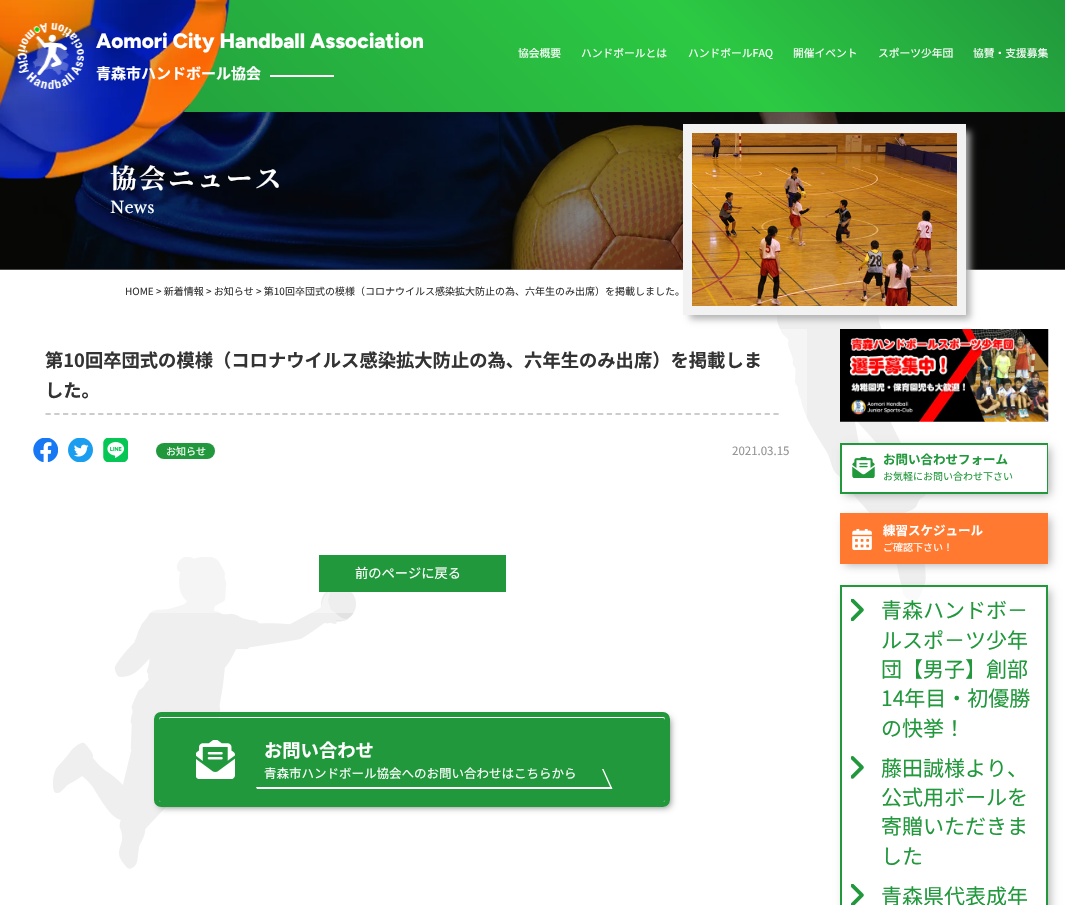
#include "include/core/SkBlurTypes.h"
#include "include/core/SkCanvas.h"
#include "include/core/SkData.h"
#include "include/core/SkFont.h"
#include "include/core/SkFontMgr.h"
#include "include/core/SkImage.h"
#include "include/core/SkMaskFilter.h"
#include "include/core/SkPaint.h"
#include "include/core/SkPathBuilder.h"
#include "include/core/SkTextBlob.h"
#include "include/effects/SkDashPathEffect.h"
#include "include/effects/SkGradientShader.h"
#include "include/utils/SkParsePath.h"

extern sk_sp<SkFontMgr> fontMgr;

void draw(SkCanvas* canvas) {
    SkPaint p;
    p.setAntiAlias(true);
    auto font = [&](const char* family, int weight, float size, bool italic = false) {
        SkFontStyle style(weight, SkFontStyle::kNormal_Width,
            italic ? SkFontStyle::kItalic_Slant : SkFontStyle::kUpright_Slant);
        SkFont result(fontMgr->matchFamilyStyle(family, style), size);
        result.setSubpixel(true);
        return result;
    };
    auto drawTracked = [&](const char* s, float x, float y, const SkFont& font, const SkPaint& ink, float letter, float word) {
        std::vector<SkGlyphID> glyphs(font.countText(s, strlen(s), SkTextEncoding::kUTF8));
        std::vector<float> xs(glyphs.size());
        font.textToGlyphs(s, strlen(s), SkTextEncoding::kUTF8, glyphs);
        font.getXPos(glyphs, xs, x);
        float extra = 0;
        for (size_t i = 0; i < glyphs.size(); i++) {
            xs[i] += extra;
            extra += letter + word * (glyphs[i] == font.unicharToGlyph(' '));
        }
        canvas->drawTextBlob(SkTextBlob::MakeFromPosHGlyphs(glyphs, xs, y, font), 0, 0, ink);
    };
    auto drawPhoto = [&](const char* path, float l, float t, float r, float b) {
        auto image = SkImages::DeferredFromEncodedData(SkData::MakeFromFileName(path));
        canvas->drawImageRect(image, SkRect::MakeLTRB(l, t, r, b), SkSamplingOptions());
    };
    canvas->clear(0xFFFFFFFF);
    {
        const SkColor colors[] = {0xFF21983C, 0xFF2CC943, 0xFF21983C};
        const float stops[] = {0, 0.66f, 1};
        const SkPoint ends[] = {{238, 350}, {827, -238}};
        p.setShader(SkGradientShader::MakeLinear(ends, colors, stops, 3, SkTileMode::kClamp));
        p.setAlpha(255);
    }
    canvas->drawRect(SkRect::MakeLTRB(182, 0, 1065, 112), p);
    drawPhoto("media/3.png", 0, 112, 1065, 270);
    p.setShader(nullptr);
    p.setColor(0x73000000);
    canvas->drawRect(SkRect::MakeLTRB(0, 112, 1065, 270), p);
    auto font1 = font("Noto Serif JP", 700, 26.5f);
    p.setColor(0xFFFFFFFF);
    drawTracked("協会ニュース", 110, 188, font1, p, 2.5f, 0);
    drawPhoto("media/1.png", 0, 0, 230, 179);
    drawPhoto("media/2.png", 17, 23, 84, 89);
    auto font2 = font("Figtree", 800, 20.8f);
    canvas->drawString("Aomori City Handball Association", 96, 48, font2, p);
    auto font3 = font("Noto Sans JP", 700, 15);
    canvas->drawString("青森市ハンドボール協会", 96, 79, font3, p);
    canvas->drawRect(SkRect::MakeLTRB(270, 75, 334, 77), p);
    auto font4 = font("Noto Sans JP", 400, 10.75f);
    {
        const struct { const char* s; float x, y; } items[] = {
            {"協会概要", 518, 57},
            {"ハンドボールとは", 581, 57},
            {"ハンドボールFAQ", 688, 57},
            {"開催イベント", 793, 57},
            {"スポーツ少年団", 878, 57},
            {"協賛・支援募集", 973, 57},
        };
        for (auto [s, x, y] : items) {
            canvas->drawString(s, x, y, font4, p);
        }
    }
    auto font5 = font("Libre Baskerville", 400, 16);
    canvas->drawString("News", 110, 213, font5, p);
    drawPhoto("media/5.png", 776, 315, 926, 600);
    drawPhoto("media/16.png", 53, 557, 356, 869);
    p.setColor(0x66FFFFFF);
    canvas->drawRect(SkRect::MakeLTRB(150, 329, 807, 613), p);
    drawPhoto("media/10.png", 840, 329, 1049, 422);
    p.setColor(0xFFB0B0B0);
    p.setMaskFilter(SkMaskFilter::MakeBlur(kNormal_SkBlurStyle, 3.5f));
    canvas->drawRect(SkRect::MakeLTRB(690, 131, 970, 319), p);
    p.setMaskFilter(nullptr);
    drawPhoto("media/4.png", 692, 133, 957, 306);
    p.setStyle(SkPaint::kStroke_Style);
    p.setStrokeWidth(9);
    p.setColor(0xFFF2F2F2);
    canvas->drawRect(SkRect::MakeLTRB(687.5f, 128.5f, 961.5f, 310.5f), p);
    auto font6 = font("Noto Sans JP", 400, 10);
    p.setStyle(SkPaint::kFill_Style);
    p.setColor(0xFF333333);
    canvas->drawString("HOME > 新着情報 > お知らせ > 第10回卒団式の模様（コロナウイルス感染拡大防止の為、六年生のみ出席）を掲載しました。", 125, 295, font6, p);
    p.setStyle(SkPaint::kStroke_Style);
    p.setStrokeWidth(1.8f);
    p.setColor(0xFFCCCCCC);
    p.setPathEffect(SkDashPathEffect::Make({{5.25f, 3.52f}}, 0));
    canvas->drawPath(SkPathBuilder().moveTo(45.5f, 414).lineTo(779, 414).detach(), p);
    p.setPathEffect(nullptr);
    auto font7 = font("Noto Sans JP", 700, 18.3f);
    p.setStyle(SkPaint::kFill_Style);
    p.setColor(0xFF333333);
    canvas->drawString("第10回卒団式の模様（コロナウイルス感染拡大防止の為、六年生のみ出席）を掲載しま", 45, 367, font7, p);
    canvas->drawString("した。", 45, 397, font7, p);
    drawPhoto("media/6.png", 33, 438, 58, 462);
    drawPhoto("media/7.png", 68, 438, 93, 462);
    drawPhoto("media/8.png", 103, 438, 128, 462);
    p.setColor(0xFF21983C);
    canvas->drawRoundRect(SkRect::MakeLTRB(156, 443, 215, 459), 8, 8, p);
    p.setColor(0xFFFFFFFF);
    canvas->drawString("お知らせ", 166, 455, font6, p);
    auto font8 = font("Noto Sans JP", 400, 11.5f);
    p.setColor(0xFF939393);
    canvas->drawString("2021.03.15", 732, 455, font8, p);
    p.setStyle(SkPaint::kStroke_Style);
    p.setStrokeWidth(2);
    p.setColor(0xFF21983C);
    canvas->drawRect(SkRect::MakeLTRB(320, 556, 505, 591), p);
    p.setStyle(SkPaint::kFill_Style);
    canvas->drawRect(SkRect::MakeLTRB(321, 557, 504, 590), p);
    auto font9 = font("Noto Sans JP", 400, 13.25f);
    p.setColor(0xFFFFFFFF);
    canvas->drawString("前のページに戻る", 355, 578, font9, p);
    p.setColor(0xFF21983C);
    canvas->drawRoundRect(SkRect::MakeLTRB(159, 718, 665, 802), 2, 2, p);
    canvas->save();
    canvas->clipPath(SkPathBuilder(SkPathFillType::kEvenOdd).moveTo(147, 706).lineTo(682, 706).lineTo(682, 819).lineTo(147, 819).close().moveTo(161, 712).lineTo(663, 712).cubicTo(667, 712, 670, 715, 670, 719).lineTo(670, 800).cubicTo(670, 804, 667, 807, 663, 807).lineTo(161, 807).cubicTo(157, 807, 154, 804, 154, 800).lineTo(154, 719).cubicTo(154, 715, 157, 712, 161, 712).close().detach(), true);
    p.setColor(0xFF777777);
    p.setMaskFilter(SkMaskFilter::MakeBlur(kNormal_SkBlurStyle, 3.5f));
    canvas->drawRoundRect(SkRect::MakeLTRB(159, 718, 670, 807), 4, 4, p);
    p.setMaskFilter(nullptr);
    canvas->restore();
    p.setStyle(SkPaint::kStroke_Style);
    p.setStrokeWidth(5);
    p.setColor(0xFF21983C);
    canvas->drawRoundRect(SkRect::MakeLTRB(156.5f, 714.5f, 667.5f, 804.5f), 4.5f, 4.5f, p);
    drawPhoto("media/9.png", 196, 740, 235, 779);
    p.setStyle(SkPaint::kFill_Style);
    p.setColor(0xFFFFFFFF);
    canvas->drawString("お問い合わせ", 264, 757, font7, p);
    auto font10 = font("Noto Sans JP", 400, 12.5f);
    canvas->drawString("青森市ハンドボール協会へのお問い合わせはこちらから", 264, 778, font10, p);
    canvas->drawPath(SkPathBuilder().moveTo(602, 769).lineTo(603.5f, 769).lineTo(612.5f, 789).lineTo(611, 789).close().detach(), p);
    canvas->drawPath(SkPathBuilder().moveTo(256, 787).lineTo(612, 787).lineTo(612, 789).lineTo(257, 789).close().detach(), p);
    p.setColor(0xFFB0B0B0);
    p.setMaskFilter(SkMaskFilter::MakeBlur(kNormal_SkBlurStyle, 4.5f));
    canvas->drawRect(SkRect::MakeLTRB(845, 448, 1050, 495), p);
    p.setMaskFilter(nullptr);
    p.setStyle(SkPaint::kStroke_Style);
    p.setStrokeWidth(2);
    p.setColor(0xFF21983C);
    canvas->drawRect(SkRect::MakeLTRB(841, 444, 1047, 493), p);
    p.setStyle(SkPaint::kFill_Style);
    p.setColor(0xFFFFFFFF);
    canvas->drawRect(SkRect::MakeLTRB(842, 445, 1047, 492), p);
    drawPhoto("media/11.png", 852, 457, 875, 478);
    auto font11 = font("Noto Sans JP", 700, 12.5f);
    p.setColor(0xFF21983C);
    canvas->drawString("お問い合わせフォーム", 883, 464, font11, p);
    canvas->drawString("お気軽にお問い合わせ下さい", 883, 480, font6, p);
    p.setColor(0xFFB0B0B0);
    p.setMaskFilter(SkMaskFilter::MakeBlur(kNormal_SkBlurStyle, 4.5f));
    canvas->drawRect(SkRect::MakeLTRB(845, 518, 1050, 565), p);
    p.setMaskFilter(nullptr);
    p.setStyle(SkPaint::kStroke_Style);
    p.setColor(0xFFFF7A30);
    canvas->drawRect(SkRect::MakeLTRB(841, 514, 1047, 563), p);
    p.setStyle(SkPaint::kFill_Style);
    canvas->drawRect(SkRect::MakeLTRB(842, 515, 1046, 562), p);
    drawPhoto("media/12.png", 852, 529, 872, 550);
    p.setColor(0xFFFFFFFF);
    canvas->drawString("練習スケジュール", 883, 535, font11, p);
    canvas->drawString("ご確認下さい！", 883, 551, font6, p);
    canvas->save();
    canvas->clipPath(SkPathBuilder(SkPathFillType::kEvenOdd).moveTo(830, 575).lineTo(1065, 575).lineTo(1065, 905).lineTo(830, 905).close().moveTo(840, 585).lineTo(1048, 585).lineTo(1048, 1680).lineTo(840, 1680).close().detach(), true);
    p.setColor(0xFFB0B0B0);
    p.setMaskFilter(SkMaskFilter::MakeBlur(kNormal_SkBlurStyle, 4.5f));
    canvas->drawRect(SkRect::MakeLTRB(845, 590, 1050, 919), p);
    p.setMaskFilter(nullptr);
    canvas->restore();
    p.setColor(0xB3FFFFFF);
    canvas->drawRect(SkRect::MakeLTRB(901, 587, 924, 600), p);
    p.setStyle(SkPaint::kStroke_Style);
    p.setColor(0xFF21983C);
    canvas->drawRect(SkRect::MakeLTRB(841, 586, 1047, 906), p);
    drawPhoto("media/13.png", 851, 599, 864, 621);
    auto font12 = font("Noto Sans JP", 400, 21);
    p.setStyle(SkPaint::kFill_Style);
    {
        const struct { const char* s; float x, y; } items[] = {
            {"青森ハンドボ－", 881, 618},
            {"ルスポ－ツ少年", 881, 648},
            {"団【男子】創部", 881, 677},
            {"14年目・初優勝", 881, 706},
            {"の快挙！", 881, 736},
        };
        for (auto [s, x, y] : items) {
            canvas->drawString(s, x, y, font12, p);
        }
    }
    drawPhoto("media/14.png", 851, 756, 864, 779);
    {
        const struct { const char* s; float x, y; } items[] = {
            {"藤田誠様より、", 881, 776},
            {"公式用ボールを", 881, 805},
            {"寄贈いただきま", 881, 834},
            {"した", 881, 864},
        };
        for (auto [s, x, y] : items) {
            canvas->drawString(s, x, y, font12, p);
        }
    }
    drawPhoto("media/15.png", 851, 884, 864, 905);
    canvas->drawString("青森県代表成年", 881, 904, font12, p);
}
